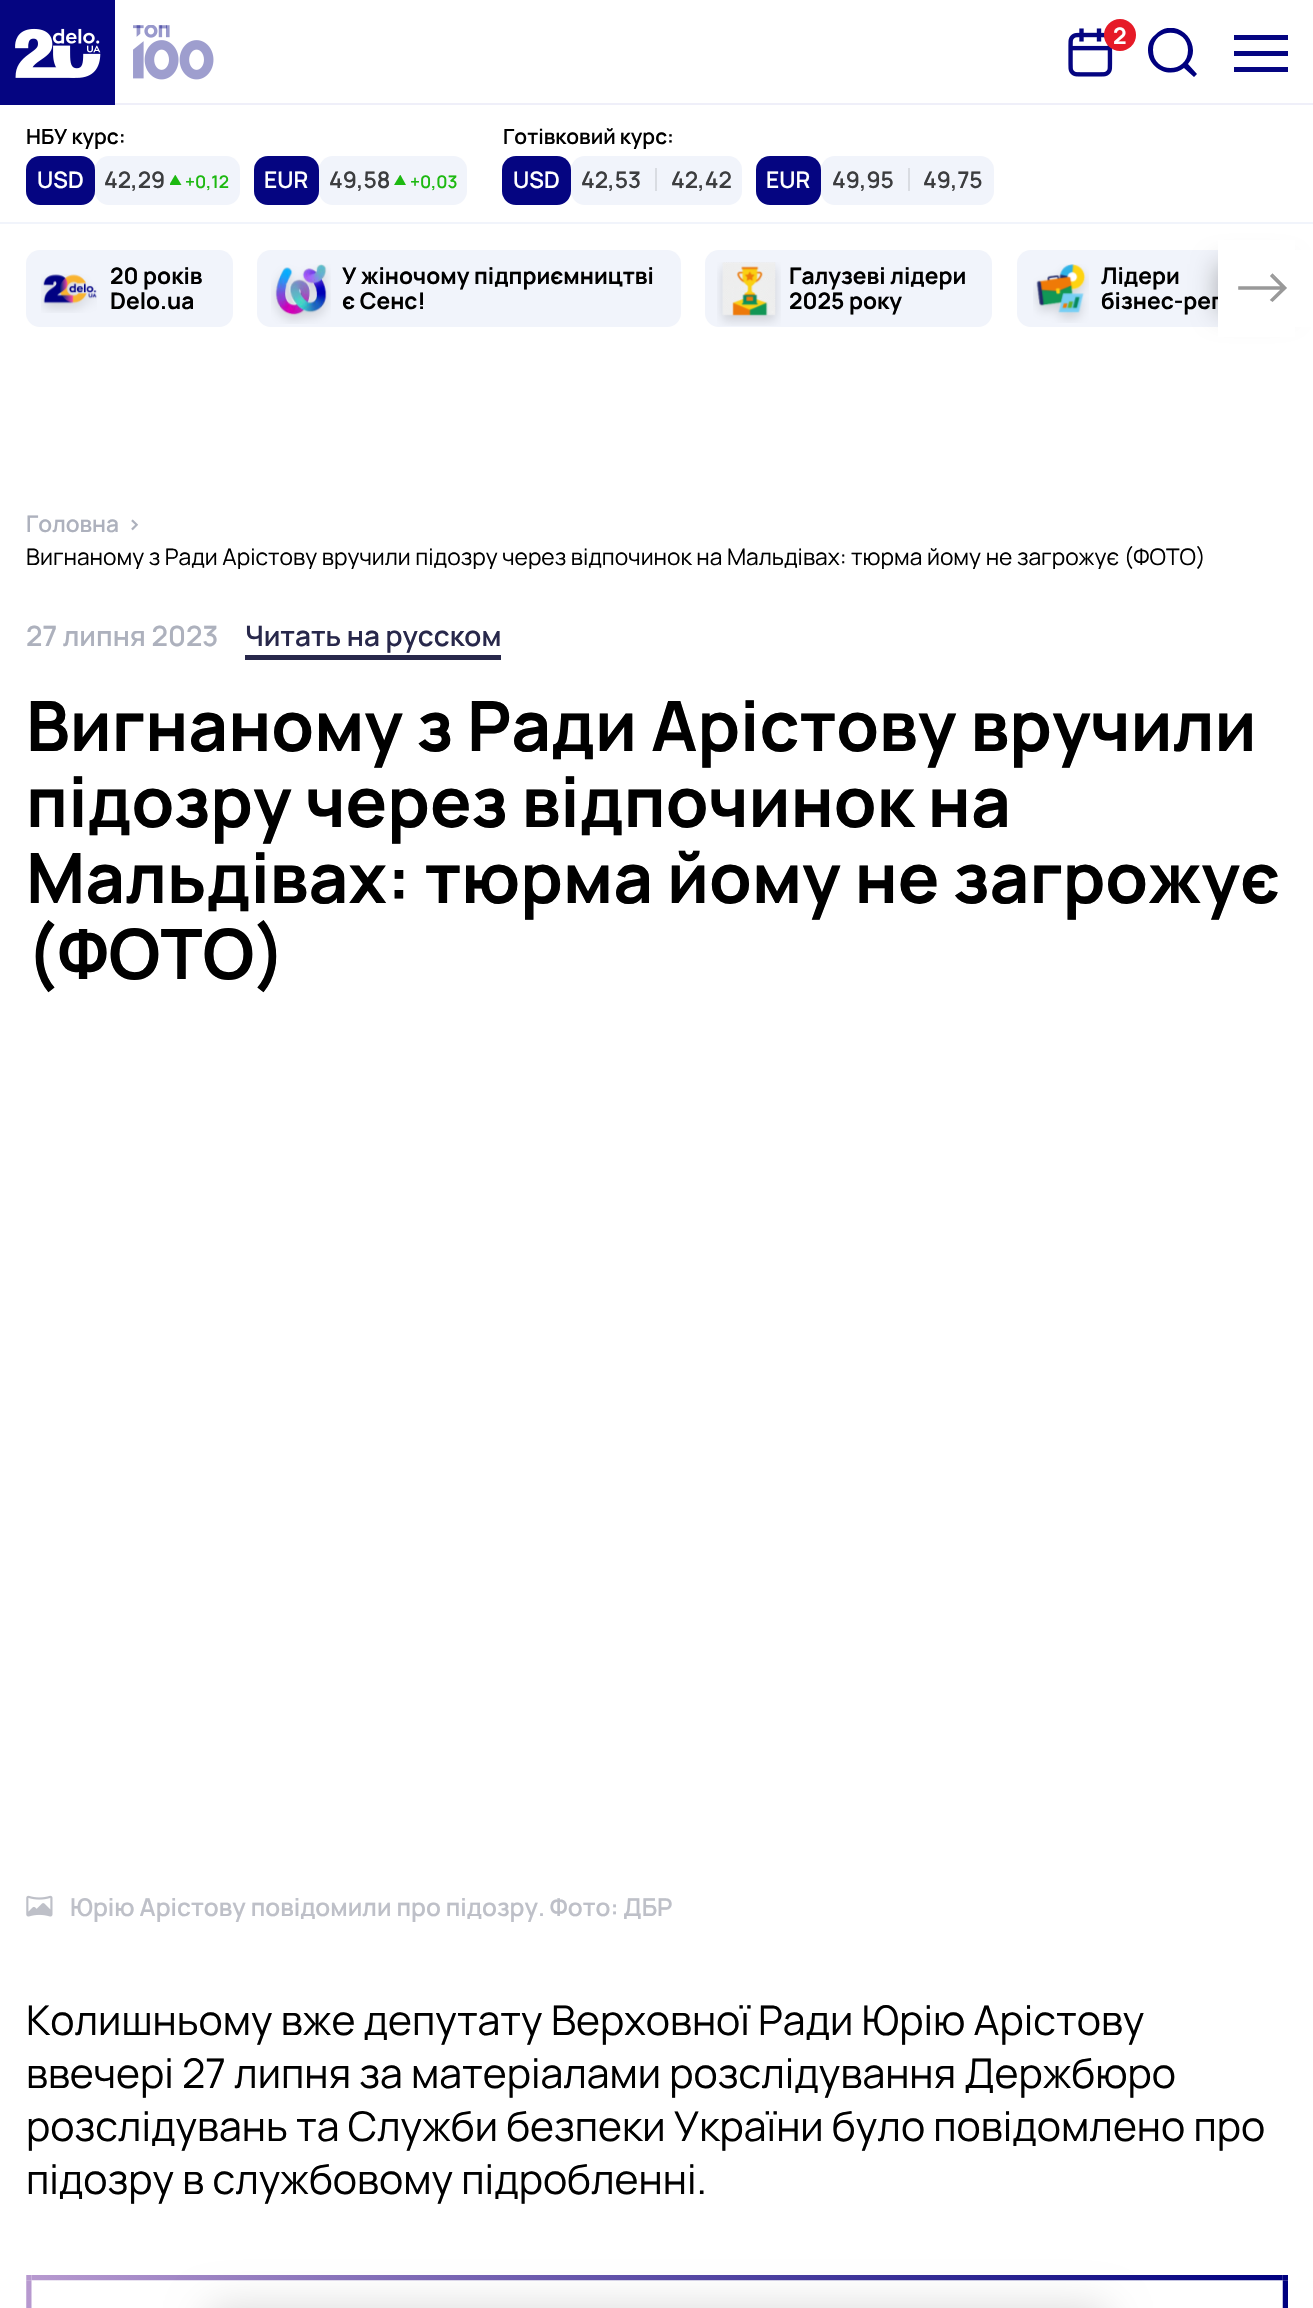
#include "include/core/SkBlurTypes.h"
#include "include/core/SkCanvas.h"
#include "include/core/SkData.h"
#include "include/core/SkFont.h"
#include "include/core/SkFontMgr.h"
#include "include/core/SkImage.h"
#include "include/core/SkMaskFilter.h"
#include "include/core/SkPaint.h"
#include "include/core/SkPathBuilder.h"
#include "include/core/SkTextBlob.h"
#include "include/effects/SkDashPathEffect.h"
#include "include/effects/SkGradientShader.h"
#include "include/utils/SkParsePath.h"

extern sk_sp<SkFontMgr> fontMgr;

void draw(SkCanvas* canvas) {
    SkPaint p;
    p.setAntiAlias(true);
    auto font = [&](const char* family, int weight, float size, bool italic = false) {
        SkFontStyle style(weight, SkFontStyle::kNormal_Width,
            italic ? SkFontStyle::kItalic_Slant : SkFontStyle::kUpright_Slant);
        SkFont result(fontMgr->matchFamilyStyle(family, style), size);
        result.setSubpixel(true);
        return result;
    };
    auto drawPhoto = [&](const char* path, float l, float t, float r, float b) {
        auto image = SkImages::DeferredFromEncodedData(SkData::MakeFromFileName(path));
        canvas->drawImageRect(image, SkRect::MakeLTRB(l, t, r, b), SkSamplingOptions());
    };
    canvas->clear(0xFFFFFFFF);
    drawPhoto("media/1.png", 0, 0, 115, 105);
    drawPhoto("media/2.png", 133, 25, 214, 80);
    drawPhoto("media/3.png", 1068, 28, 1113, 77);
    p.setColor(0xFFE61A27);
    canvas->drawCircle(1120, 35, 16, p);
    auto font1 = font("Manrope", 700, 22.75f);
    p.setColor(0xFFFFFFFF);
    canvas->drawString("2", 1113, 44, font1, p);
    canvas->save();
    canvas->clipRect(SkRect::MakeLTRB(1148, 28, 1197, 77));
    p.setColor(0xFF00007F);
    canvas->drawPath(SkPathBuilder().moveTo(1148, 50).cubicTo(1148, 69, 1170, 79, 1184, 68).lineTo(1194, 77).lineTo(1197, 74).lineTo(1188, 64).cubicTo(1205, 43, 1175, 14, 1155, 35).cubicTo(1150, 39, 1148, 44, 1148, 50).close().moveTo(1188, 50).cubicTo(1188, 74, 1153, 74, 1153, 50).cubicTo(1153, 27, 1188, 27, 1188, 50).close().detach(), p);
    canvas->restore();
    {
        const struct { float l, t, r, b; SkColor color; } items[] = {
            {1234, 35, 1288, 40, 0xFF050581},
            {1234, 51, 1288, 56, 0xFF050581},
            {1234, 67, 1288, 72, 0xFF050581},
            {115, 103, 1313, 105, 0xFFEFEFF9},
            {0, 222, 1313, 224, 0xFFF1F4FB},
        };
        for (auto [l, t, r, b, color] : items) {
            p.setColor(color);
            canvas->drawRect(SkRect::MakeLTRB(l, t, r, b), p);
        }
    }
    auto font2 = font("Manrope", 600, 21);
    p.setColor(0xFF000000);
    canvas->drawString("НБУ курс:", 26, 144, font2, p);
    p.setColor(0xFF050581);
    canvas->drawRoundRect(SkRect::MakeLTRB(26, 156, 95, 205), 14, 14, p);
    auto font3 = font("Manrope", 600, 22.75f);
    p.setColor(0xFFFFFFFF);
    canvas->drawString("USD", 37, 188, font3, p);
    p.setColor(0xFFF1F4FB);
    canvas->drawRoundRect(SkRect::MakeLTRB(95, 156, 240, 205), 14, 14, p);
    p.setColor(0xFF3C3D3F);
    canvas->drawString("42,29", 104, 188, font3, p);
    p.setColor(0xFF1DB911);
    canvas->drawPath(SkPathBuilder().moveTo(175.5f, 175).lineTo(175, 175).lineTo(170, 183.5f).lineTo(170, 185).lineTo(181.5f, 185).close().detach(), p);
    auto font4 = font("Manrope", 600, 17.5f);
    canvas->drawString("+0,12", 185, 188, font4, p);
    p.setColor(0xFF050581);
    canvas->drawRoundRect(SkRect::MakeLTRB(254, 156, 319, 205), 14, 14, p);
    p.setColor(0xFFFFFFFF);
    canvas->drawString("EUR", 264, 188, font3, p);
    p.setColor(0xFFF1F4FB);
    canvas->drawRoundRect(SkRect::MakeLTRB(319, 156, 467, 205), 14, 14, p);
    p.setColor(0xFF3C3D3F);
    canvas->drawString("49,58", 329, 188, font3, p);
    p.setColor(0xFF1DB911);
    canvas->drawPath(SkPathBuilder().moveTo(400.5f, 175).lineTo(400, 175).lineTo(394, 185).lineTo(406, 185).close().detach(), p);
    canvas->drawString("+0,03", 410, 188, font4, p);
    p.setColor(0xFF000000);
    canvas->drawString("Готівковий курс:", 503, 144, font2, p);
    p.setColor(0xFF050581);
    canvas->drawRoundRect(SkRect::MakeLTRB(502, 156, 571, 205), 14, 14, p);
    p.setColor(0xFFFFFFFF);
    canvas->drawString("USD", 513, 188, font3, p);
    p.setColor(0xFFF1F4FB);
    canvas->drawRoundRect(SkRect::MakeLTRB(571, 156, 742, 205), 14, 14, p);
    p.setColor(0xFF3C3D3F);
    canvas->drawString("42,53", 581, 188, font3, p);
    p.setColor(0xFFD9DCE2);
    canvas->drawRect(SkRect::MakeLTRB(655, 168, 657, 191), p);
    p.setColor(0xFF3C3D3F);
    canvas->drawString("42,42", 671, 188, font3, p);
    p.setColor(0xFF050581);
    canvas->drawRoundRect(SkRect::MakeLTRB(756, 156, 821, 205), 14, 14, p);
    p.setColor(0xFFFFFFFF);
    canvas->drawString("EUR", 766, 188, font3, p);
    p.setColor(0xFFF1F4FB);
    canvas->drawRoundRect(SkRect::MakeLTRB(821, 156, 994, 205), 14, 14, p);
    p.setColor(0xFF3C3D3F);
    canvas->drawString("49,95", 832, 188, font3, p);
    p.setColor(0xFFD9DCE2);
    canvas->drawRect(SkRect::MakeLTRB(908, 168, 910, 191), p);
    p.setColor(0xFF3C3D3F);
    canvas->drawString("49,75", 923, 188, font3, p);
    p.setColor(0xFFF1F4FB);
    canvas->drawRoundRect(SkRect::MakeLTRB(26, 250, 233, 327), 14, 14, p);
    drawPhoto("media/4.png", 41, 274, 97, 313);
    p.setColor(0xFF000000);
    canvas->drawString("20 років", 110, 284, font1, p);
    canvas->drawString("Delo.ua", 110, 309, font1, p);
    p.setColor(0xFFF1F4FB);
    canvas->drawRoundRect(SkRect::MakeLTRB(257, 250, 681, 327), 14, 14, p);
    drawPhoto("media/5.png", 271, 264, 331, 324);
    p.setColor(0xFF000000);
    canvas->drawString("У жіночому підприємництві", 342, 284, font1, p);
    canvas->drawString("є Сенс!", 342, 309, font1, p);
    p.setColor(0xFFF1F4FB);
    canvas->drawRoundRect(SkRect::MakeLTRB(705, 250, 992, 327), 14, 14, p);
    drawPhoto("media/6.png", 717, 262, 781, 326);
    p.setColor(0xFF000000);
    canvas->drawString("Галузеві лідери", 789, 284, font1, p);
    canvas->drawString("2025 року", 789, 309, font1, p);
    p.setColor(0xFFF1F4FB);
    canvas->drawRoundRect(SkRect::MakeLTRB(1017, 250, 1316, 327), 14, 14, p);
    drawPhoto("media/7.png", 1033, 264, 1089, 323);
    p.setColor(0xFF000000);
    canvas->drawString("Лідери", 1101, 284, font1, p);
    canvas->drawString("бізнес-реп", 1101, 309, font1, p);
    p.setColor(0x4D000000);
    p.setMaskFilter(SkMaskFilter::MakeBlur(kNormal_SkBlurStyle, 13));
    canvas->drawRect(SkRect::MakeLTRB(1218, 264, 1286, 313), p);
    p.setMaskFilter(nullptr);
    {
        const struct { float l, t, r, b; SkColor color; } items[] = {
            {1218, 250, 1313, 327, 0xFFFFFFFF},
            {1218, 240, 1295, 250, 0xFFFFFFFF},
            {1218, 327, 1295, 337, 0xFFFFFFFF},
        };
        for (auto [l, t, r, b, color] : items) {
            p.setColor(color);
            canvas->drawRect(SkRect::MakeLTRB(l, t, r, b), p);
        }
    }
    p.setColor(0xFF999999);
    canvas->drawPath(SkPathBuilder().moveTo(1286, 288).lineTo(1272, 301).lineTo(1271, 300).lineTo(1282, 289).lineTo(1239, 289).lineTo(1239, 287).lineTo(1282, 287).lineTo(1271, 276).lineTo(1272, 275).close().detach(), p);
    p.setStyle(SkPaint::kStroke_Style);
    p.setStrokeWidth(1.6f);
    canvas->drawPath(SkPathBuilder().moveTo(1286, 288).lineTo(1272.5f, 301).lineTo(1271, 300).lineTo(1282, 289).lineTo(1239, 289).lineTo(1239, 287).lineTo(1282, 287).lineTo(1271, 276).lineTo(1272.5f, 274.5f).close().detach(), p);
    p.setStyle(SkPaint::kFill_Style);
    p.setColor(0xFFADB1BD);
    canvas->drawString("Головна", 26, 532, font3, p);
    canvas->drawString(">", 127, 532, font3, p);
    canvas->save();
    canvas->clipRect(SkRect::MakeLTRB(26, 544, 1206, 569));
    auto font5 = font("Manrope", 400, 22.75f);
    p.setColor(0xFF000000);
    canvas->drawString("Вигнаному з Ради Арістову вручили підозру через відпочинок на Мальдівах: тюрма йому не загрожує (ФОТО)", 26, 565, font5, p);
    canvas->restore();
    auto font6 = font("Manrope", 600, 28);
    p.setColor(0xFFADB1BD);
    canvas->drawString("27 липня 2023", 26, 646, font6, p);
    p.setColor(0xFF28284B);
    canvas->drawString("Читать на русском", 245, 646, font6, p);
    canvas->drawRect(SkRect::MakeLTRB(245, 655, 501, 660), p);
    auto font7 = font("Manrope", 700, 69.3f);
    p.setColor(0xFF000000);
    {
        const struct { const char* s; float x, y; } items[] = {
            {"Вигнаному з Ради Арістову вручили", 26, 751},
            {"підозру через відпочинок на", 26, 827},
            {"Мальдівах: тюрма йому не загрожує", 26, 903},
            {"(ФОТО)", 26, 979},
        };
        for (auto [s, x, y] : items) {
            canvas->drawString(s, x, y, font7, p);
        }
    }
    drawPhoto("media/8.png", 26, 1895, 53, 1917);
    auto font8 = font("Manrope", 600, 24.5f);
    p.setColor(0xFFBEC0C8);
    canvas->drawString("Юрію Арістову повідомили про підозру. Фото: ДБР", 70, 1916, font8, p);
    auto font9 = font("Manrope", 400, 40.95f);
    p.setColor(0xFF000000);
    {
        const struct { const char* s; float x, y; } items[] = {
            {"Колишньому вже депутату Верховної Ради Юрію Арістову", 26, 2035},
            {"ввечері 27 липня за матеріалами розслідування Держбюро", 26, 2088},
            {"розслідувань та Служби безпеки України було повідомлено про", 26, 2141},
            {"підозру в службовому підробленні.", 26, 2194},
        };
        for (auto [s, x, y] : items) {
            canvas->drawString(s, x, y, font9, p);
        }
    }
    drawPhoto("media/9.png", 26, 2275, 1288, 2308);
    p.setColor(0x26000000);
    p.setMaskFilter(SkMaskFilter::MakeBlur(kNormal_SkBlurStyle, 20));
    canvas->drawRoundRect(SkRect::MakeLTRB(208, 2308, 1108, 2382), 14, 14, p);
    p.setMaskFilter(nullptr);
}
